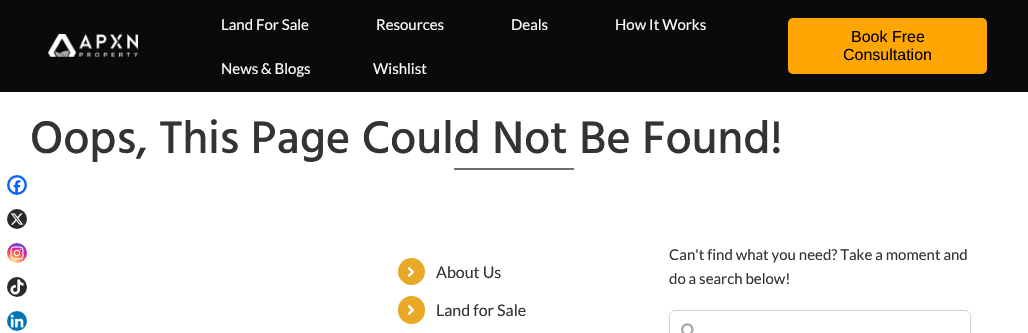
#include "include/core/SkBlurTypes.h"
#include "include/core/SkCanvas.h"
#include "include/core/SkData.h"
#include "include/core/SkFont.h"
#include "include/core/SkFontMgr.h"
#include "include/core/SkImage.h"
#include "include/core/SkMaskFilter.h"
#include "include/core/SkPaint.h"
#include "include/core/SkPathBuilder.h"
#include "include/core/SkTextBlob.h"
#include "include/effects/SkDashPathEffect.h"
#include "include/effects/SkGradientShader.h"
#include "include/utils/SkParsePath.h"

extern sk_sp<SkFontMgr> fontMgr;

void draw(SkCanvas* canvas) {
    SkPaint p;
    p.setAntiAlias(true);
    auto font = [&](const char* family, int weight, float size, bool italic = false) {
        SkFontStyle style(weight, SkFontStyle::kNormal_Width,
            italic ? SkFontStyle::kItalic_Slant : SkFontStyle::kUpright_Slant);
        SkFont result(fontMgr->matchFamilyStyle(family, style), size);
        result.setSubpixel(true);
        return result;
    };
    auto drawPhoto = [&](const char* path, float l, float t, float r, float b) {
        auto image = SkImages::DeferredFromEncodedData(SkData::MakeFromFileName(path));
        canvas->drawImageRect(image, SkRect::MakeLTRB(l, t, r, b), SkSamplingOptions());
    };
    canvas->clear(0xFFFFFFFF);
    p.setColor(0xFF0A0A0A);
    canvas->drawRect(SkRect::MakeLTRB(0, 0, 1028, 92), p);
    drawPhoto("media/1.png", 48, 34, 138, 57);
    auto font1 = font("Lato", 400, 15);
    p.setColor(0xFFFFFFFF);
    {
        const struct { const char* s; float x, y; } items[] = {
            {"Land For Sale", 221, 30},
            {"Resources", 376, 30},
            {"Deals", 511, 30},
            {"How It Works", 615, 30},
            {"News & Blogs", 221, 74},
            {"Wishlist", 373, 74},
        };
        for (auto [s, x, y] : items) {
            canvas->drawString(s, x, y, font1, p);
        }
    }
    p.setColor(0xFFFFA601);
    canvas->drawRoundRect(SkRect::MakeLTRB(788, 18, 987, 74), 5, 5, p);
    auto font2 = font("Liberation Sans", 400, 16);
    p.setColor(0xFF000000);
    canvas->drawString("Book Free", 851, 42, font2, p);
    canvas->drawString("Consultation", 843, 60, font2, p);
    p.setColor(0xFF0765FE);
    canvas->drawCircle(17, 185, 10, p);
    drawPhoto("media/2.png", 9, 177, 25, 193);
    p.setColor(0xFF2A2A2A);
    canvas->drawCircle(17, 219, 10, p);
    drawPhoto("media/3.png", 10, 213, 24, 225);
    {
        const SkColor colors[] = {0xFFFDF497, 0xFFFDF497, 0xFFFD5949, 0xFFD6249F, 0xFF285AEB};
        const float stops[] = {0, 0.05f, 0.45f, 0.6f, 0.9f};
        p.setShader(SkGradientShader::MakeRadial({13, 264}, 26, colors, stops, 5, SkTileMode::kClamp));
        p.setAlpha(255);
    }
    canvas->drawCircle(17, 253, 10, p);
    drawPhoto("media/4.png", 10, 246, 24, 260);
    p.setShader(nullptr);
    p.setColor(0xFF2A2A2A);
    canvas->drawCircle(17, 287, 10, p);
    drawPhoto("media/5.png", 10, 279, 24, 295);
    p.setColor(0xFF0077B5);
    canvas->drawCircle(17, 321, 10, p);
    drawPhoto("media/6.png", 10, 314, 24, 328);
    auto font3 = font("Hind", 500, 46.7f);
    p.setColor(0xFF333333);
    canvas->drawString("Oops, This Page Could Not Be Found!", 30, 153, font3, p);
    p.setColor(0xFF6F6F6F);
    canvas->drawRect(SkRect::MakeLTRB(454, 168, 574, 170), p);
    p.setColor(0xFFE9A825);
    canvas->drawCircle(411.5f, 271.5f, 13.5f, p);
    drawPhoto("media/7.png", 407, 267, 415, 277);
    auto font4 = font("Lato", 400, 16);
    p.setColor(0xFF333333);
    canvas->drawString("About Us", 436, 278, font4, p);
    p.setColor(0xFFE9A825);
    canvas->drawRoundRect(SkRect::MakeLTRB(398, 296, 425, 324), 13.5f, 13.5f, p);
    drawPhoto("media/7.png", 407, 305, 415, 315);
    p.setColor(0xFF333333);
    canvas->drawString("Land for Sale", 436, 316, font4, p);
    canvas->drawString("Can't find what you need? Take a moment and", 669, 260, font1, p);
    canvas->drawString("do a search below!", 669, 284, font1, p);
    p.setStyle(SkPaint::kStroke_Style);
    p.setStrokeWidth(1);
    p.setColor(0xFFD2D2D2);
    canvas->drawRoundRect(SkRect::MakeLTRB(669.5f, 310.5f, 970.5f, 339.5f), 5.5f, 5.5f, p);
    drawPhoto("media/8.png", 681, 323, 694, 333);
}
